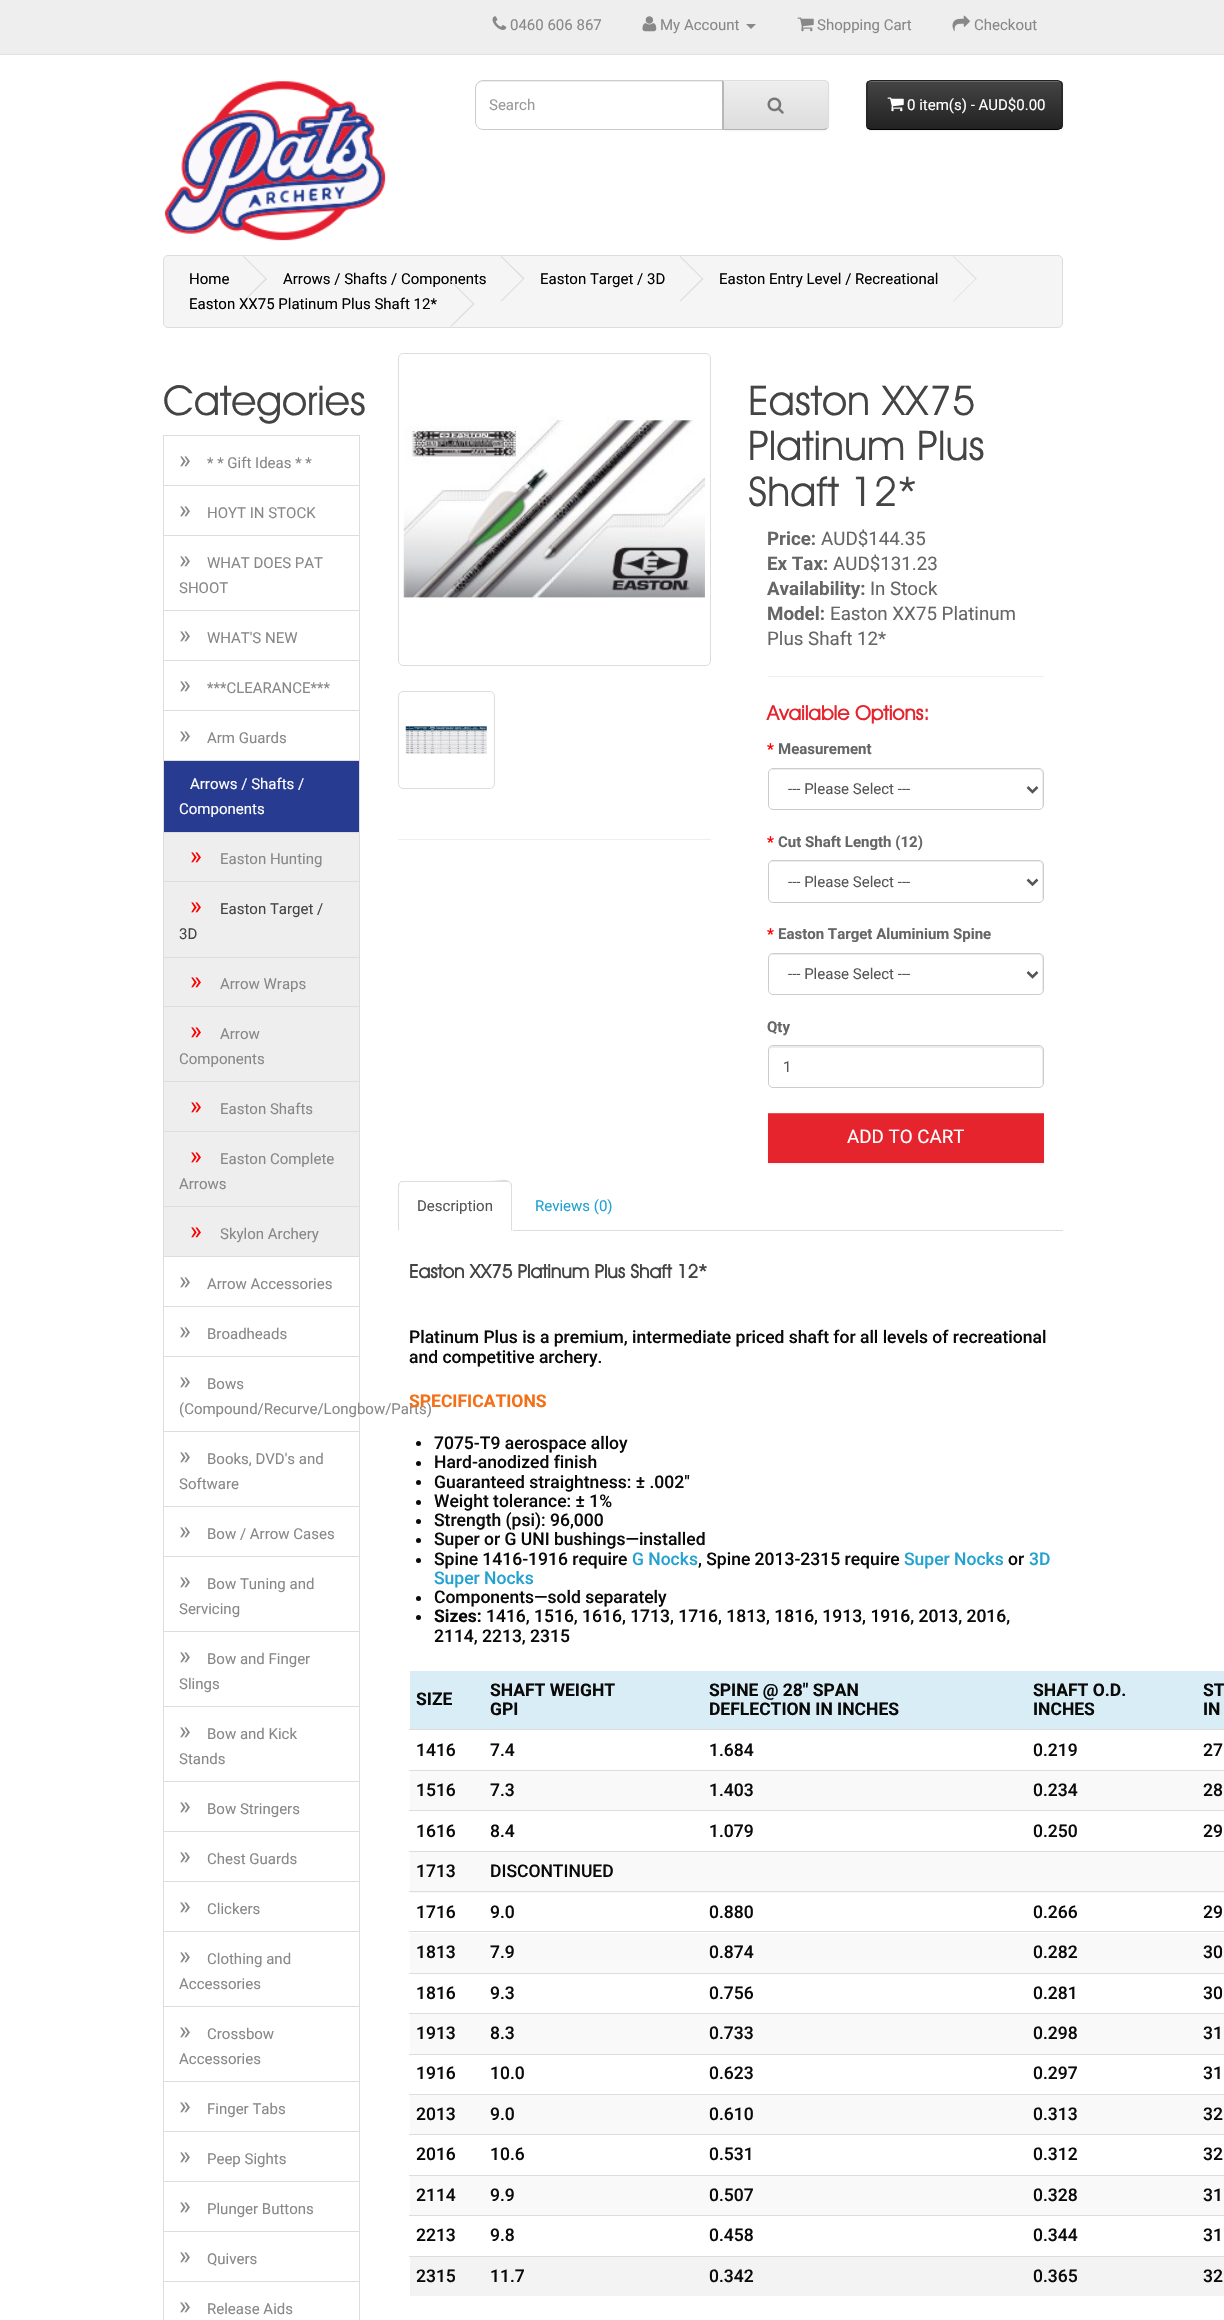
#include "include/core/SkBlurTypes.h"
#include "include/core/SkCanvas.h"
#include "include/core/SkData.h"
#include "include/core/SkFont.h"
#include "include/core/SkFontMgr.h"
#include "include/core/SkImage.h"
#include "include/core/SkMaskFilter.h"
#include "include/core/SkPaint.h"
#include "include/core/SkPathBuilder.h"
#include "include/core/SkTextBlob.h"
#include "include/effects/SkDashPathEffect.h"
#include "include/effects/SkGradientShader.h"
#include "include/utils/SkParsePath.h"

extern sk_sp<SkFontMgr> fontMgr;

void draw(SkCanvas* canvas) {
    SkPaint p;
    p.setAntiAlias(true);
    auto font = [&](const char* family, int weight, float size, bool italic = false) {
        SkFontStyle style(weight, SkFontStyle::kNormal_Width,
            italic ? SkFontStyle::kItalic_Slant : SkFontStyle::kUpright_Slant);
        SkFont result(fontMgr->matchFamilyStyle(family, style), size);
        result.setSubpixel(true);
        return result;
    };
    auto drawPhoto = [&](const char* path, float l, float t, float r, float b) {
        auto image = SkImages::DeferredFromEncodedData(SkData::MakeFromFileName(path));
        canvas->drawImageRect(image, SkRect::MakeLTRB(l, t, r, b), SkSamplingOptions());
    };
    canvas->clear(0xFFFFFFFF);
    p.setColor(0xFFEEEEEE);
    canvas->drawRect(SkRect::MakeLTRB(0, 0, 1224, 54), p);
    p.setColor(0xFFE2E2E2);
    canvas->drawRect(SkRect::MakeLTRB(0, 54, 1224, 55), p);
    drawPhoto("media/1.png", 492, 16, 507, 30);
    auto font1 = font("Roboto", 400, 15);
    p.setColor(0xFF888888);
    canvas->drawString("0460 606 867", 510, 30, font1, p);
    drawPhoto("media/2.png", 642, 16, 657, 32);
    canvas->drawString("My Account", 660, 30, font1, p);
    canvas->drawPath(SkPathBuilder().moveTo(746, 24).lineTo(756, 24).lineTo(751, 29).close().detach(), p);
    drawPhoto("media/3.png", 797, 17, 814, 32);
    canvas->drawString("Shopping Cart", 817, 30, font1, p);
    drawPhoto("media/4.png", 952, 15, 970, 32);
    canvas->drawString("Checkout", 974, 30, font1, p);
    drawPhoto("media/5.png", 164, 81, 386, 241);
    p.setColor(0xFFECECEC);
    canvas->drawPath(SkPathBuilder().moveTo(482, 82).lineTo(722, 82).lineTo(722, 129).lineTo(723, 129).lineTo(723, 81).lineTo(482, 81).cubicTo(479, 81, 476, 84, 476, 87).lineTo(476, 89).cubicTo(476, 85, 479, 82, 482, 82).close().detach(), p);
    p.setStyle(SkPaint::kStroke_Style);
    p.setStrokeWidth(1);
    p.setColor(0xFFCCCCCC);
    canvas->drawPath(SkPathBuilder().moveTo(483, 80.5f).lineTo(723.5f, 80.5f).lineTo(723.5f, 129.5f).lineTo(483, 129.5f).cubicTo(479, 129.5f, 475.5f, 126, 475.5f, 122).lineTo(475.5f, 88).cubicTo(475.5f, 84, 479, 80.5f, 483, 80.5f).close().detach(), p);
    p.setStyle(SkPaint::kFill_Style);
    p.setColor(0xFF999999);
    canvas->drawString("Search", 489, 110, font1, p);
    p.setColor(0x0D000000);
    p.setMaskFilter(SkMaskFilter::MakeBlur(kNormal_SkBlurStyle, 1));
    canvas->drawRoundRect(SkRect::MakeLTRB(723, 81, 829, 131), 5, 5, p);
    p.setMaskFilter(nullptr);
    canvas->save();
    canvas->clipPath(SkPathBuilder().moveTo(723, 80).lineTo(824, 80).cubicTo(827, 80, 829, 82, 829, 85).lineTo(829, 125).cubicTo(829, 128, 827, 130, 824, 130).lineTo(723, 130).close().detach(), true);
    {
        const SkColor colors[] = {0xFFEEEEEE, 0xFFDDDDDD};
        const float stops[] = {0, 1};
        const SkPoint ends[] = {{776, 81}, {776, 129}};
        p.setShader(SkGradientShader::MakeLinear(ends, colors, stops, 2, SkTileMode::kClamp));
        p.setAlpha(255);
    }
    canvas->drawRect(SkRect::MakeLTRB(723, 81, 829, 129), p);
    canvas->restore();
    p.setShader(nullptr);
    p.setColor(0xFFF1F1F1);
    canvas->drawPath(SkPathBuilder().moveTo(724, 82).lineTo(824, 82).cubicTo(826, 82, 828, 84, 828, 86).lineTo(828, 85).cubicTo(828, 83, 826, 81, 824, 81).lineTo(724, 81).close().detach(), p);
    p.setColor(0xFFDDDDDD);
    canvas->drawPath(SkPathBuilder().moveTo(724, 81).lineTo(824, 81).lineTo(827, 82).lineTo(827, 81).lineTo(825, 80).lineTo(722, 80).lineTo(724, 82).close().detach(), p);
    canvas->drawPath(SkPathBuilder().moveTo(829, 127).lineTo(827, 129).lineTo(827, 128).cubicTo(827, 127, 828, 126, 828, 125).lineTo(828, 85).cubicTo(828, 84, 827, 83, 827, 82).lineTo(827, 81).lineTo(829, 83).close().detach(), p);
    p.setColor(0xFFB3B3B3);
    canvas->drawPath(SkPathBuilder().moveTo(722, 130).lineTo(825, 130).lineTo(827, 129).lineTo(827, 128).lineTo(824, 129).lineTo(724, 129).lineTo(724, 128).close().detach(), p);
    p.setColor(0xFFB7B7B7);
    canvas->drawPath(SkPathBuilder().moveTo(722, 130).lineTo(724, 128).lineTo(724, 82).lineTo(722, 80).close().detach(), p);
    drawPhoto("media/6.png", 767, 97, 784, 114);
    p.setColor(0x0D000000);
    p.setMaskFilter(SkMaskFilter::MakeBlur(kNormal_SkBlurStyle, 1));
    canvas->drawRoundRect(SkRect::MakeLTRB(866, 81, 1063, 131), 5, 5, p);
    p.setMaskFilter(nullptr);
    canvas->save();
    canvas->clipPath(SkPathBuilder().moveTo(871, 80).lineTo(1058, 80).cubicTo(1061, 80, 1063, 82, 1063, 85).lineTo(1063, 125).cubicTo(1063, 128, 1061, 130, 1058, 130).lineTo(871, 130).cubicTo(868, 130, 866, 128, 866, 125).lineTo(866, 85).cubicTo(866, 82, 868, 80, 871, 80).close().detach(), true);
    {
        const SkColor colors[] = {0xFF444444, 0xFF222222};
        const float stops[] = {0, 1};
        const SkPoint ends[] = {{964, 81}, {964, 129}};
        p.setShader(SkGradientShader::MakeLinear(ends, colors, stops, 2, SkTileMode::kClamp));
        p.setAlpha(255);
    }
    canvas->drawRect(SkRect::MakeLTRB(866, 81, 1063, 129), p);
    canvas->restore();
    p.setShader(nullptr);
    p.setColor(0xFF696969);
    canvas->drawPath(SkPathBuilder().moveTo(871, 82).lineTo(1058, 82).cubicTo(1060, 82, 1061, 84, 1061, 86).lineTo(1061, 85).cubicTo(1061, 83, 1059, 81, 1057, 81).lineTo(872, 81).cubicTo(870, 81, 868, 83, 868, 85).lineTo(868, 86).cubicTo(868, 84, 869, 82, 871, 82).close().detach(), p);
    p.setStyle(SkPaint::kStroke_Style);
    p.setStrokeWidth(1.2f);
    p.setColor(0xFF000000);
    canvas->drawPath(SkPathBuilder().moveTo(1060.5f, 128).cubicTo(1060, 129, 1058.5f, 129.5f, 1057.5f, 129.5f).lineTo(871, 129.5f).cubicTo(870, 129.5f, 869, 129, 868, 128).detach(), p);
    p.setColor(0xFF222222);
    canvas->drawPath(SkPathBuilder().moveTo(868, 128).cubicTo(867.5f, 127.5f, 867, 126, 867, 125).lineTo(867, 85).cubicTo(867, 84, 867.5f, 82.5f, 868, 82).cubicTo(869, 81, 870, 80.5f, 871, 80.5f).lineTo(1057.5f, 80.5f).cubicTo(1058.5f, 80.5f, 1060, 81, 1060.5f, 82).cubicTo(1061.5f, 82.5f, 1062, 84, 1062, 85).lineTo(1062, 125).cubicTo(1062, 126, 1061.5f, 127.5f, 1060.5f, 128).detach(), p);
    drawPhoto("media/7.png", 887, 97, 904, 112);
    p.setStyle(SkPaint::kFill_Style);
    p.setColor(0xFFFFFFFF);
    canvas->drawString("0 item(s) - AUD$0.00", 907, 110, font1, p);
    p.setColor(0xFFF5F5F5);
    canvas->drawRoundRect(SkRect::MakeLTRB(163.5f, 255.5f, 1062.5f, 327.5f), 4.5f, 4.5f, p);
    p.setStyle(SkPaint::kStroke_Style);
    p.setStrokeWidth(1);
    p.setColor(0xFFDDDDDD);
    canvas->drawRoundRect(SkRect::MakeLTRB(163.5f, 255.5f, 1062.5f, 327.5f), 4.5f, 4.5f, p);
    p.setStyle(SkPaint::kFill_Style);
    p.setColor(0xFF000000);
    canvas->drawString("Home", 189, 284, font1, p);
    p.setColor(0xFFDDDDDD);
    canvas->drawPath(SkPathBuilder().moveTo(243, 256.5f).lineTo(244, 256).lineTo(267, 279).lineTo(266, 279.5f).close().detach(), p);
    canvas->drawPath(SkPathBuilder().moveTo(243, 301).lineTo(266, 278).lineTo(267, 279).lineTo(244, 301.5f).close().detach(), p);
    p.setColor(0xFF000000);
    canvas->drawString("Arrows / Shafts / Components", 283, 284, font1, p);
    p.setColor(0xFFDDDDDD);
    canvas->drawPath(SkPathBuilder().moveTo(500.5f, 256.5f).lineTo(501.5f, 256).lineTo(524.5f, 278.5f).lineTo(523.5f, 279.5f).close().detach(), p);
    canvas->drawPath(SkPathBuilder().moveTo(500.5f, 301).lineTo(523.5f, 278).lineTo(524.5f, 278.5f).lineTo(501.5f, 301.5f).close().detach(), p);
    p.setColor(0xFF000000);
    canvas->drawString("Easton Target / 3D", 540, 284, font1, p);
    p.setColor(0xFFDDDDDD);
    canvas->drawPath(SkPathBuilder().moveTo(679.5f, 256.5f).lineTo(680.5f, 256).lineTo(703.5f, 279).lineTo(702.5f, 279.5f).close().detach(), p);
    canvas->drawPath(SkPathBuilder().moveTo(679.5f, 301).lineTo(702.5f, 278).lineTo(703.5f, 279).lineTo(680.5f, 301.5f).close().detach(), p);
    p.setColor(0xFF000000);
    canvas->drawString("Easton Entry Level / Recreational", 719, 284, font1, p);
    p.setColor(0xFFDDDDDD);
    canvas->drawPath(SkPathBuilder().moveTo(953, 256.5f).lineTo(953.5f, 256).lineTo(976.5f, 278.5f).lineTo(976, 279.5f).close().detach(), p);
    canvas->drawPath(SkPathBuilder().moveTo(953, 301).lineTo(976, 278).lineTo(976.5f, 278.5f).lineTo(953.5f, 301.5f).close().detach(), p);
    p.setColor(0xFF000000);
    canvas->drawString("Easton XX75 Platinum Plus Shaft 12*", 189, 309, font1, p);
    p.setColor(0xFFDDDDDD);
    canvas->drawPath(SkPathBuilder().moveTo(450.5f, 281.5f).lineTo(451.5f, 281).lineTo(474.5f, 304).lineTo(473.5f, 304.5f).close().detach(), p);
    canvas->drawPath(SkPathBuilder().moveTo(450.5f, 326).lineTo(473.5f, 303).lineTo(474.5f, 304).lineTo(451.5f, 326.5f).close().detach(), p);
    auto font2 = font("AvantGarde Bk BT", 400, 41.25f);
    p.setColor(0xFF444444);
    canvas->drawString("Categories", 163, 415, font2, p);
    p.setStyle(SkPaint::kStroke_Style);
    p.setColor(0xFFDDDDDD);
    canvas->drawRect(SkRect::MakeLTRB(163.5f, 435.5f, 359.5f, 485.5f), p);
    auto font3 = font("Roboto", 400, 25);
    p.setStyle(SkPaint::kFill_Style);
    p.setColor(0xFF888888);
    canvas->drawString("»", 179, 468, font3, p);
    canvas->drawString("* * Gift Ideas * *", 207, 468, font1, p);
    p.setStyle(SkPaint::kStroke_Style);
    p.setColor(0xFFDDDDDD);
    canvas->drawRect(SkRect::MakeLTRB(163.5f, 485.5f, 359.5f, 535.5f), p);
    p.setStyle(SkPaint::kFill_Style);
    p.setColor(0xFF888888);
    canvas->drawString("»", 179, 518, font3, p);
    canvas->drawString("HOYT IN STOCK", 207, 518, font1, p);
    p.setStyle(SkPaint::kStroke_Style);
    p.setColor(0xFFDDDDDD);
    canvas->drawRect(SkRect::MakeLTRB(163.5f, 535.5f, 359.5f, 610.5f), p);
    p.setStyle(SkPaint::kFill_Style);
    p.setColor(0xFF888888);
    canvas->drawString("»", 179, 568, font3, p);
    canvas->drawString("WHAT DOES PAT", 207, 568, font1, p);
    canvas->drawString("SHOOT", 179, 593, font1, p);
    p.setStyle(SkPaint::kStroke_Style);
    p.setColor(0xFFDDDDDD);
    canvas->drawRect(SkRect::MakeLTRB(163.5f, 610.5f, 359.5f, 660.5f), p);
    p.setStyle(SkPaint::kFill_Style);
    p.setColor(0xFF888888);
    canvas->drawString("»", 179, 643, font3, p);
    canvas->drawString("WHAT'S NEW", 207, 643, font1, p);
    p.setStyle(SkPaint::kStroke_Style);
    p.setColor(0xFFDDDDDD);
    canvas->drawRect(SkRect::MakeLTRB(163.5f, 660.5f, 359.5f, 710.5f), p);
    p.setStyle(SkPaint::kFill_Style);
    p.setColor(0xFF888888);
    canvas->drawString("»", 179, 693, font3, p);
    canvas->drawString("***CLEARANCE***", 207, 693, font1, p);
    p.setStyle(SkPaint::kStroke_Style);
    p.setColor(0xFFDDDDDD);
    canvas->drawRect(SkRect::MakeLTRB(163.5f, 710.5f, 359.5f, 760.5f), p);
    p.setStyle(SkPaint::kFill_Style);
    p.setColor(0xFF888888);
    canvas->drawString("»", 179, 743, font3, p);
    canvas->drawString("Arm Guards", 207, 743, font1, p);
    p.setColor(0xFFEEEEEE);
    canvas->drawRect(SkRect::MakeLTRB(164, 833, 359, 881), p);
    p.setStyle(SkPaint::kStroke_Style);
    p.setColor(0xFFDDDDDD);
    canvas->drawRect(SkRect::MakeLTRB(163.5f, 831.5f, 359.5f, 882.5f), p);
    p.setStyle(SkPaint::kFill_Style);
    p.setColor(0xFF273B91);
    canvas->drawRect(SkRect::MakeLTRB(163.5f, 760.5f, 359.5f, 832.5f), p);
    p.setStyle(SkPaint::kStroke_Style);
    p.setColor(0xFFDDDDDD);
    canvas->drawRect(SkRect::MakeLTRB(163.5f, 760.5f, 359.5f, 832.5f), p);
    p.setStyle(SkPaint::kFill_Style);
    p.setColor(0xFFFFFFFF);
    canvas->drawString("Arrows / Shafts /", 190, 789, font1, p);
    canvas->drawString("Components", 179, 814, font1, p);
    p.setColor(0xFFFF0000);
    canvas->drawString("»", 190, 864, font3, p);
    p.setColor(0xFF888888);
    canvas->drawString("Easton Hunting", 220, 864, font1, p);
    p.setColor(0xFFEEEEEE);
    canvas->drawRect(SkRect::MakeLTRB(164, 958, 359, 1006), p);
    p.setStyle(SkPaint::kStroke_Style);
    p.setColor(0xFFDDDDDD);
    canvas->drawRect(SkRect::MakeLTRB(163.5f, 956.5f, 359.5f, 1007.5f), p);
    p.setStyle(SkPaint::kFill_Style);
    p.setColor(0xFFEEEEEE);
    canvas->drawRect(SkRect::MakeLTRB(163.5f, 881.5f, 359.5f, 957.5f), p);
    p.setStyle(SkPaint::kStroke_Style);
    p.setColor(0xFFDDDDDD);
    canvas->drawRect(SkRect::MakeLTRB(163.5f, 881.5f, 359.5f, 957.5f), p);
    p.setStyle(SkPaint::kFill_Style);
    p.setColor(0xFFFF0000);
    canvas->drawString("»", 190, 914, font3, p);
    p.setColor(0xFF444444);
    canvas->drawString("Easton Target /", 220, 914, font1, p);
    canvas->drawString("3D", 179, 939, font1, p);
    p.setColor(0xFFFF0000);
    canvas->drawString("»", 190, 989, font3, p);
    p.setColor(0xFF888888);
    canvas->drawString("Arrow Wraps", 220, 989, font1, p);
    p.setColor(0xFFEEEEEE);
    canvas->drawRect(SkRect::MakeLTRB(164, 1007, 359, 1081), p);
    p.setStyle(SkPaint::kStroke_Style);
    p.setColor(0xFFDDDDDD);
    canvas->drawRect(SkRect::MakeLTRB(163.5f, 1006.5f, 359.5f, 1082.5f), p);
    p.setStyle(SkPaint::kFill_Style);
    p.setColor(0xFFFF0000);
    canvas->drawString("»", 190, 1039, font3, p);
    p.setColor(0xFF888888);
    canvas->drawString("Arrow", 220, 1039, font1, p);
    canvas->drawString("Components", 179, 1064, font1, p);
    p.setColor(0xFFEEEEEE);
    canvas->drawRect(SkRect::MakeLTRB(164, 1082, 359, 1131), p);
    p.setStyle(SkPaint::kStroke_Style);
    p.setColor(0xFFDDDDDD);
    canvas->drawRect(SkRect::MakeLTRB(163.5f, 1081.5f, 359.5f, 1132.5f), p);
    p.setStyle(SkPaint::kFill_Style);
    p.setColor(0xFFFF0000);
    canvas->drawString("»", 190, 1114, font3, p);
    p.setColor(0xFF888888);
    canvas->drawString("Easton Shafts", 220, 1114, font1, p);
    p.setColor(0xFFEEEEEE);
    canvas->drawRect(SkRect::MakeLTRB(164, 1132, 359, 1206), p);
    p.setStyle(SkPaint::kStroke_Style);
    p.setColor(0xFFDDDDDD);
    canvas->drawRect(SkRect::MakeLTRB(163.5f, 1131.5f, 359.5f, 1207.5f), p);
    p.setStyle(SkPaint::kFill_Style);
    p.setColor(0xFFFF0000);
    canvas->drawString("»", 190, 1164, font3, p);
    p.setColor(0xFF888888);
    canvas->drawString("Easton Complete", 220, 1164, font1, p);
    canvas->drawString("Arrows", 179, 1189, font1, p);
    p.setColor(0xFFEEEEEE);
    canvas->drawRect(SkRect::MakeLTRB(164, 1207, 359, 1256), p);
    p.setStyle(SkPaint::kStroke_Style);
    p.setColor(0xFFDDDDDD);
    canvas->drawRect(SkRect::MakeLTRB(163.5f, 1206.5f, 359.5f, 1257.5f), p);
    p.setStyle(SkPaint::kFill_Style);
    p.setColor(0xFFFF0000);
    canvas->drawString("»", 190, 1239, font3, p);
    p.setColor(0xFF888888);
    canvas->drawString("Skylon Archery", 220, 1239, font1, p);
    p.setColor(0xFFFFFFFF);
    canvas->drawRect(SkRect::MakeLTRB(164, 1257, 359, 1258), p);
    p.setStyle(SkPaint::kStroke_Style);
    p.setColor(0xFFDDDDDD);
    canvas->drawRect(SkRect::MakeLTRB(163.5f, 1256.5f, 359.5f, 1307.5f), p);
    p.setStyle(SkPaint::kFill_Style);
    p.setColor(0xFF888888);
    canvas->drawString("»", 179, 1289, font3, p);
    canvas->drawString("Arrow Accessories", 207, 1289, font1, p);
    p.setColor(0xFFFFFFFF);
    canvas->drawRect(SkRect::MakeLTRB(164, 1307, 359, 1308), p);
    p.setStyle(SkPaint::kStroke_Style);
    p.setColor(0xFFDDDDDD);
    canvas->drawRect(SkRect::MakeLTRB(163.5f, 1306.5f, 359.5f, 1357.5f), p);
    p.setStyle(SkPaint::kFill_Style);
    p.setColor(0xFF888888);
    canvas->drawString("»", 179, 1339, font3, p);
    canvas->drawString("Broadheads", 207, 1339, font1, p);
    p.setColor(0xFFFFFFFF);
    canvas->drawRect(SkRect::MakeLTRB(164, 1357, 359, 1358), p);
    p.setStyle(SkPaint::kStroke_Style);
    p.setColor(0xFFDDDDDD);
    canvas->drawRect(SkRect::MakeLTRB(163.5f, 1356.5f, 359.5f, 1432.5f), p);
    p.setStyle(SkPaint::kFill_Style);
    p.setColor(0xFF888888);
    canvas->drawString("»", 179, 1389, font3, p);
    canvas->drawString("Bows", 207, 1389, font1, p);
    canvas->drawString("(Compound/Recurve/Longbow/Parts)", 179, 1414, font1, p);
    p.setColor(0xFFFFFFFF);
    canvas->drawRect(SkRect::MakeLTRB(164, 1432, 359, 1433), p);
    p.setStyle(SkPaint::kStroke_Style);
    p.setColor(0xFFDDDDDD);
    canvas->drawRect(SkRect::MakeLTRB(163.5f, 1431.5f, 359.5f, 1507.5f), p);
    p.setStyle(SkPaint::kFill_Style);
    p.setColor(0xFF888888);
    canvas->drawString("»", 179, 1464, font3, p);
    canvas->drawString("Books, DVD's and", 207, 1464, font1, p);
    canvas->drawString("Software", 179, 1489, font1, p);
    p.setColor(0xFFFFFFFF);
    canvas->drawRect(SkRect::MakeLTRB(164, 1507, 359, 1508), p);
    p.setStyle(SkPaint::kStroke_Style);
    p.setColor(0xFFDDDDDD);
    canvas->drawRect(SkRect::MakeLTRB(163.5f, 1506.5f, 359.5f, 1557.5f), p);
    p.setStyle(SkPaint::kFill_Style);
    p.setColor(0xFF888888);
    canvas->drawString("»", 179, 1539, font3, p);
    canvas->drawString("Bow / Arrow Cases", 207, 1539, font1, p);
    p.setColor(0xFFFFFFFF);
    canvas->drawRect(SkRect::MakeLTRB(164, 1557, 359, 1558), p);
    p.setStyle(SkPaint::kStroke_Style);
    p.setColor(0xFFDDDDDD);
    canvas->drawRect(SkRect::MakeLTRB(163.5f, 1556.5f, 359.5f, 1632.5f), p);
    p.setStyle(SkPaint::kFill_Style);
    p.setColor(0xFF888888);
    canvas->drawString("»", 179, 1589, font3, p);
    canvas->drawString("Bow Tuning and", 207, 1589, font1, p);
    canvas->drawString("Servicing", 179, 1614, font1, p);
    p.setColor(0xFFFFFFFF);
    canvas->drawRect(SkRect::MakeLTRB(164, 1632, 359, 1633), p);
    p.setStyle(SkPaint::kStroke_Style);
    p.setColor(0xFFDDDDDD);
    canvas->drawRect(SkRect::MakeLTRB(163.5f, 1631.5f, 359.5f, 1707.5f), p);
    p.setStyle(SkPaint::kFill_Style);
    p.setColor(0xFF888888);
    canvas->drawString("»", 179, 1664, font3, p);
    canvas->drawString("Bow and Finger", 207, 1664, font1, p);
    canvas->drawString("Slings", 179, 1689, font1, p);
    p.setColor(0xFFFFFFFF);
    canvas->drawRect(SkRect::MakeLTRB(164, 1707, 359, 1708), p);
    p.setStyle(SkPaint::kStroke_Style);
    p.setColor(0xFFDDDDDD);
    canvas->drawRect(SkRect::MakeLTRB(163.5f, 1706.5f, 359.5f, 1782.5f), p);
    p.setStyle(SkPaint::kFill_Style);
    p.setColor(0xFF888888);
    canvas->drawString("»", 179, 1739, font3, p);
    canvas->drawString("Bow and Kick", 207, 1739, font1, p);
    canvas->drawString("Stands", 179, 1764, font1, p);
    p.setColor(0xFFFFFFFF);
    canvas->drawRect(SkRect::MakeLTRB(164, 1782, 359, 1783), p);
    p.setStyle(SkPaint::kStroke_Style);
    p.setColor(0xFFDDDDDD);
    canvas->drawRect(SkRect::MakeLTRB(163.5f, 1781.5f, 359.5f, 1832.5f), p);
    p.setStyle(SkPaint::kFill_Style);
    p.setColor(0xFF888888);
    canvas->drawString("»", 179, 1814, font3, p);
    canvas->drawString("Bow Stringers", 207, 1814, font1, p);
    p.setColor(0xFFFFFFFF);
    canvas->drawRect(SkRect::MakeLTRB(164, 1832, 359, 1833), p);
    p.setStyle(SkPaint::kStroke_Style);
    p.setColor(0xFFDDDDDD);
    canvas->drawRect(SkRect::MakeLTRB(163.5f, 1831.5f, 359.5f, 1882.5f), p);
    p.setStyle(SkPaint::kFill_Style);
    p.setColor(0xFF888888);
    canvas->drawString("»", 179, 1864, font3, p);
    canvas->drawString("Chest Guards", 207, 1864, font1, p);
    p.setColor(0xFFFFFFFF);
    canvas->drawRect(SkRect::MakeLTRB(164, 1882, 359, 1883), p);
    p.setStyle(SkPaint::kStroke_Style);
    p.setColor(0xFFDDDDDD);
    canvas->drawRect(SkRect::MakeLTRB(163.5f, 1881.5f, 359.5f, 1932.5f), p);
    p.setStyle(SkPaint::kFill_Style);
    p.setColor(0xFF888888);
    canvas->drawString("»", 179, 1914, font3, p);
    canvas->drawString("Clickers", 207, 1914, font1, p);
    p.setColor(0xFFFFFFFF);
    canvas->drawRect(SkRect::MakeLTRB(164, 1932, 359, 1933), p);
    p.setStyle(SkPaint::kStroke_Style);
    p.setColor(0xFFDDDDDD);
    canvas->drawRect(SkRect::MakeLTRB(163.5f, 1931.5f, 359.5f, 2007.5f), p);
    p.setStyle(SkPaint::kFill_Style);
    p.setColor(0xFF888888);
    canvas->drawString("»", 179, 1964, font3, p);
    canvas->drawString("Clothing and", 207, 1964, font1, p);
    canvas->drawString("Accessories", 179, 1989, font1, p);
    p.setColor(0xFFFFFFFF);
    canvas->drawRect(SkRect::MakeLTRB(164, 2007, 359, 2008), p);
    p.setStyle(SkPaint::kStroke_Style);
    p.setColor(0xFFDDDDDD);
    canvas->drawRect(SkRect::MakeLTRB(163.5f, 2006.5f, 359.5f, 2082.5f), p);
    p.setStyle(SkPaint::kFill_Style);
    p.setColor(0xFF888888);
    canvas->drawString("»", 179, 2039, font3, p);
    canvas->drawString("Crossbow", 207, 2039, font1, p);
    canvas->drawString("Accessories", 179, 2064, font1, p);
    p.setColor(0xFFFFFFFF);
    canvas->drawRect(SkRect::MakeLTRB(164, 2082, 359, 2083), p);
    p.setStyle(SkPaint::kStroke_Style);
    p.setColor(0xFFDDDDDD);
    canvas->drawRect(SkRect::MakeLTRB(163.5f, 2081.5f, 359.5f, 2132.5f), p);
    p.setStyle(SkPaint::kFill_Style);
    p.setColor(0xFF888888);
    canvas->drawString("»", 179, 2114, font3, p);
    canvas->drawString("Finger Tabs", 207, 2114, font1, p);
    p.setColor(0xFFFFFFFF);
    canvas->drawRect(SkRect::MakeLTRB(164, 2132, 359, 2133), p);
    p.setStyle(SkPaint::kStroke_Style);
    p.setColor(0xFFDDDDDD);
    canvas->drawRect(SkRect::MakeLTRB(163.5f, 2131.5f, 359.5f, 2182.5f), p);
    p.setStyle(SkPaint::kFill_Style);
    p.setColor(0xFF888888);
    canvas->drawString("»", 179, 2164, font3, p);
    canvas->drawString("Peep Sights", 207, 2164, font1, p);
    p.setColor(0xFFFFFFFF);
    canvas->drawRect(SkRect::MakeLTRB(164, 2182, 359, 2183), p);
    p.setStyle(SkPaint::kStroke_Style);
    p.setColor(0xFFDDDDDD);
    canvas->drawRect(SkRect::MakeLTRB(163.5f, 2181.5f, 359.5f, 2232.5f), p);
    p.setStyle(SkPaint::kFill_Style);
    p.setColor(0xFF888888);
    canvas->drawString("»", 179, 2214, font3, p);
    canvas->drawString("Plunger Buttons", 207, 2214, font1, p);
    p.setColor(0xFFFFFFFF);
    canvas->drawRect(SkRect::MakeLTRB(164, 2232, 359, 2233), p);
    p.setStyle(SkPaint::kStroke_Style);
    p.setColor(0xFFDDDDDD);
    canvas->drawRect(SkRect::MakeLTRB(163.5f, 2231.5f, 359.5f, 2282.5f), p);
    p.setStyle(SkPaint::kFill_Style);
    p.setColor(0xFF888888);
    canvas->drawString("»", 179, 2264, font3, p);
    canvas->drawString("Quivers", 207, 2264, font1, p);
    p.setColor(0xFFFFFFFF);
    canvas->drawRect(SkRect::MakeLTRB(164, 2282, 359, 2283), p);
    p.setStyle(SkPaint::kStroke_Style);
    p.setColor(0xFFDDDDDD);
    canvas->drawRect(SkRect::MakeLTRB(163.5f, 2281.5f, 359.5f, 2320.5f), p);
    p.setStyle(SkPaint::kFill_Style);
    p.setColor(0xFF888888);
    canvas->drawString("»", 179, 2314, font3, p);
    canvas->drawString("Release Aids", 207, 2314, font1, p);
    p.setStyle(SkPaint::kStroke_Style);
    p.setColor(0xFFDDDDDD);
    canvas->drawRoundRect(SkRect::MakeLTRB(398.5f, 353.5f, 710.5f, 665.5f), 4.5f, 4.5f, p);
    drawPhoto("media/8.png", 403, 417, 705, 600);
    canvas->drawRoundRect(SkRect::MakeLTRB(398.5f, 691.5f, 494.5f, 788.5f), 4.5f, 4.5f, p);
    drawPhoto("media/9.png", 405, 726, 487, 754);
    p.setStyle(SkPaint::kFill_Style);
    p.setColor(0xFFEEEEEE);
    canvas->drawRect(SkRect::MakeLTRB(398, 839, 711, 840), p);
    p.setColor(0xFF444444);
    {
        const struct { const char* s; float x, y; } items[] = {
            {"Easton XX75", 748, 415},
            {"Platinum Plus", 748, 460},
            {"Shaft 12*", 748, 506},
        };
        for (auto [s, x, y] : items) {
            canvas->drawString(s, x, y, font2, p);
        }
    }
    auto font4 = font("Roboto", 700, 18.75f);
    p.setColor(0xFF666666);
    canvas->drawString("Price:", 767, 545, font4, p);
    auto font5 = font("Roboto", 400, 18.75f);
    canvas->drawString("AUD$144.35", 821, 545, font5, p);
    canvas->drawString("Ex Tax:", 767, 570, font4, p);
    canvas->drawString("AUD$131.23", 833, 570, font5, p);
    canvas->drawString("Availability:", 767, 595, font4, p);
    canvas->drawString("In Stock", 870, 595, font5, p);
    canvas->drawString("Model:", 767, 620, font4, p);
    canvas->drawString("Easton XX75 Platinum", 830, 620, font5, p);
    canvas->drawString("Plus Shaft 12*", 767, 645, font5, p);
    p.setColor(0xFFEEEEEE);
    canvas->drawRect(SkRect::MakeLTRB(768, 676, 1044, 677), p);
    auto font6 = font("AvantGarde Bk BT", 700, 20);
    p.setColor(0xFFE5242D);
    canvas->drawString("Available Options:", 767, 720, font6, p);
    auto font7 = font("Roboto", 700, 15);
    p.setColor(0xFFFF0000);
    canvas->drawString("*", 767, 754, font7, p);
    p.setColor(0xFF666666);
    canvas->drawString("Measurement", 778, 754, font7, p);
    p.setColor(0xFFECECEC);
    canvas->drawPath(SkPathBuilder().moveTo(772, 770).lineTo(1039, 770).cubicTo(1044, 770, 1042, 783, 1042, 785).lineTo(1042, 808).cubicTo(1042, 807, 1043, 806, 1043, 805).lineTo(1043, 773).cubicTo(1043, 771, 1041, 769, 1039, 769).lineTo(773, 769).cubicTo(771, 769, 769, 771, 769, 773).lineTo(769, 774).cubicTo(769, 772, 770, 770, 772, 770).close().detach(), p);
    p.setStyle(SkPaint::kStroke_Style);
    p.setColor(0xFFCCCCCC);
    canvas->drawRoundRect(SkRect::MakeLTRB(768.5f, 768.5f, 1043.5f, 809.5f), 4.5f, 4.5f, p);
    p.setStrokeWidth(2.5f);
    p.setColor(0xFF555555);
    canvas->drawPath(SkPathBuilder().moveTo(1027.5f, 787).lineTo(1032.5f, 792).lineTo(1037.5f, 787).detach(), p);
    p.setStyle(SkPaint::kFill_Style);
    canvas->drawString("--- Please Select ---", 788, 794, font1, p);
    p.setColor(0xFFFF0000);
    canvas->drawString("*", 767, 847, font7, p);
    p.setColor(0xFF666666);
    canvas->drawString("Cut Shaft Length (12)", 778, 847, font7, p);
    p.setColor(0xFFECECEC);
    canvas->drawPath(SkPathBuilder().moveTo(772, 862).lineTo(1039, 862).cubicTo(1041, 862, 1042, 864, 1042, 866).lineTo(1042, 900).cubicTo(1043, 899, 1043, 898, 1043, 897).lineTo(1043, 865).cubicTo(1043, 863, 1041, 861, 1039, 861).lineTo(773, 861).cubicTo(771, 861, 769, 863, 769, 865).lineTo(769, 866).cubicTo(769, 864, 770, 862, 772, 862).close().detach(), p);
    p.setStyle(SkPaint::kStroke_Style);
    p.setStrokeWidth(1);
    p.setColor(0xFFCCCCCC);
    canvas->drawRoundRect(SkRect::MakeLTRB(768.5f, 860.5f, 1043.5f, 902.5f), 4.5f, 4.5f, p);
    p.setStrokeWidth(2.5f);
    p.setColor(0xFF555555);
    canvas->drawPath(SkPathBuilder().moveTo(1027.5f, 879.5f).lineTo(1032.5f, 884.5f).lineTo(1037.5f, 879.5f).detach(), p);
    p.setStyle(SkPaint::kFill_Style);
    canvas->drawString("--- Please Select ---", 788, 887, font1, p);
    p.setColor(0xFFFF0000);
    canvas->drawString("*", 767, 939, font7, p);
    p.setColor(0xFF666666);
    canvas->drawString("Easton Target Aluminium Spine", 778, 939, font7, p);
    p.setColor(0xFFECECEC);
    canvas->drawPath(SkPathBuilder().moveTo(772, 955).lineTo(1039, 955).cubicTo(1044, 955, 1042, 968, 1042, 970).lineTo(1042, 993).cubicTo(1042, 992, 1043, 991, 1043, 990).lineTo(1043, 958).cubicTo(1043, 956, 1041, 954, 1039, 954).lineTo(773, 954).cubicTo(771, 954, 769, 956, 769, 958).lineTo(769, 959).cubicTo(769, 957, 770, 955, 772, 955).close().detach(), p);
    p.setStyle(SkPaint::kStroke_Style);
    p.setStrokeWidth(1);
    p.setColor(0xFFCCCCCC);
    canvas->drawRoundRect(SkRect::MakeLTRB(768.5f, 953.5f, 1043.5f, 994.5f), 4.5f, 4.5f, p);
    p.setStrokeWidth(2.5f);
    p.setColor(0xFF555555);
    canvas->drawPath(SkPathBuilder().moveTo(1027.5f, 972).lineTo(1032.5f, 977).lineTo(1037.5f, 972).detach(), p);
    p.setStyle(SkPaint::kFill_Style);
    canvas->drawString("--- Please Select ---", 788, 979, font1, p);
    p.setColor(0xFF666666);
    canvas->drawString("Qty", 767, 1032, font7, p);
    p.setColor(0xFFECECEC);
    canvas->drawPath(SkPathBuilder().moveTo(772, 1048).lineTo(1039, 1048).cubicTo(1041, 1048, 1042, 1049, 1042, 1051).lineTo(1042, 1085).cubicTo(1043, 1084, 1043, 1083, 1043, 1082).lineTo(1043, 1050).cubicTo(1043, 1048, 1041, 1046, 1039, 1046).lineTo(773, 1046).cubicTo(771, 1046, 769, 1048, 769, 1050).lineTo(769, 1051).cubicTo(769, 1049, 770, 1048, 772, 1048).close().detach(), p);
    p.setStyle(SkPaint::kStroke_Style);
    p.setStrokeWidth(1);
    p.setColor(0xFFCCCCCC);
    canvas->drawRoundRect(SkRect::MakeLTRB(768.5f, 1045.5f, 1043.5f, 1087.5f), 4.5f, 4.5f, p);
    p.setStyle(SkPaint::kFill_Style);
    p.setColor(0xFF555555);
    canvas->drawString("1", 783, 1072, font1, p);
    p.setColor(0x0D000000);
    p.setMaskFilter(SkMaskFilter::MakeBlur(kNormal_SkBlurStyle, 1));
    canvas->drawRect(SkRect::MakeLTRB(768, 1114, 1044, 1164), p);
    p.setMaskFilter(nullptr);
    p.setColor(0xFFE5242D);
    canvas->drawRect(SkRect::MakeLTRB(768, 1114, 1044, 1163), p);
    p.setColor(0xFFEA5057);
    canvas->drawRect(SkRect::MakeLTRB(768, 1113, 1044, 1114), p);
    p.setColor(0xFFFFFFFF);
    canvas->drawString("ADD TO CART", 847, 1143, font5, p);
    p.setColor(0xFFDDDDDD);
    canvas->drawRect(SkRect::MakeLTRB(513, 1230, 1063, 1231), p);
    canvas->drawPath(SkPathBuilder().moveTo(402, 1182).cubicTo(401, 1182, 400, 1183, 400, 1183).lineTo(399, 1183).lineTo(401, 1181).lineTo(491, 1181).cubicTo(498, 1181, 507, 1177, 511, 1183).lineTo(510, 1183).cubicTo(510, 1183, 509, 1182, 508, 1182).close().detach(), p);
    canvas->drawPath(SkPathBuilder().moveTo(511, 1183).cubicTo(512, 1184, 512, 1185, 512, 1186).lineTo(512, 1231).lineTo(511, 1230).lineTo(511, 1186).lineTo(510, 1183).close().detach(), p);
    canvas->drawPath(SkPathBuilder().moveTo(398, 1231).lineTo(398, 1186).cubicTo(398, 1185, 398, 1184, 399, 1183).lineTo(400, 1183).lineTo(399, 1186).lineTo(399, 1230).close().detach(), p);
    p.setColor(0xFF555555);
    canvas->drawString("Description", 417, 1211, font1, p);
    p.setColor(0xFF23A1D1);
    canvas->drawString("Reviews (0)", 535, 1211, font1, p);
    auto font8 = font("AvantGarde Bk BT", 700, 18.75f);
    p.setColor(0xFF444444);
    canvas->drawString("Easton XX75 Platinum Plus Shaft 12*", 409, 1278, font8, p);
    auto font9 = font("Roboto", 500, 17.5f);
    p.setColor(0xFF0A0A0A);
    canvas->drawString("Platinum Plus is a premium, intermediate priced shaft for all levels of recreational", 409, 1343, font9, p);
    canvas->drawString("and competitive archery.", 409, 1363, font9, p);
    auto font10 = font("Roboto", 700, 17.5f);
    p.setColor(0xFFF46F16);
    canvas->drawString("SPECIFICATIONS", 409, 1407, font10, p);
    p.setColor(0xFF0A0A0A);
    canvas->drawCircle(418.5f, 1443.5f, 2.5f, p);
    canvas->drawString("7075-T9 aerospace alloy", 434, 1449, font9, p);
    canvas->drawCircle(418.5f, 1463.5f, 2.5f, p);
    canvas->drawString("Hard-anodized finish", 434, 1468, font9, p);
    canvas->drawCircle(418.5f, 1482.5f, 2.5f, p);
    canvas->drawString("Guaranteed straightness: ± .002″", 434, 1488, font9, p);
    canvas->drawCircle(418.5f, 1502.5f, 2.5f, p);
    canvas->drawString("Weight tolerance: ± 1%", 434, 1507, font9, p);
    canvas->drawCircle(418.5f, 1521.5f, 2.5f, p);
    canvas->drawString("Strength (psi): 96,000", 434, 1526, font9, p);
    canvas->drawCircle(418.5f, 1540.5f, 2.5f, p);
    canvas->drawString("Super or G UNI bushings—installed", 434, 1545, font9, p);
    canvas->drawCircle(418.5f, 1560.5f, 2.5f, p);
    canvas->drawString("Spine 1416-1916 require", 434, 1565, font9, p);
    p.setColor(0xFF23A1D1);
    canvas->drawString("G Nocks", 632, 1565, font9, p);
    p.setColor(0xFF0A0A0A);
    canvas->drawString(", Spine 2013-2315 require", 698, 1565, font9, p);
    p.setColor(0xFF23A1D1);
    canvas->drawString("Super Nocks", 904, 1565, font9, p);
    p.setColor(0xFF0A0A0A);
    canvas->drawString("or", 1008, 1565, font9, p);
    p.setColor(0xFF23A1D1);
    canvas->drawString("3D", 1029, 1565, font9, p);
    canvas->drawString("Super Nocks", 434, 1584, font9, p);
    p.setColor(0xFF0A0A0A);
    canvas->drawCircle(418.5f, 1598.5f, 2.5f, p);
    canvas->drawString("Components—sold separately", 434, 1603, font9, p);
    canvas->drawCircle(418.5f, 1617.5f, 2.5f, p);
    canvas->drawString("Sizes:", 434, 1622, font10, p);
    canvas->drawString("1416, 1516, 1616, 1713, 1716, 1813, 1816, 1913, 1916, 2013, 2016,", 486, 1622, font9, p);
    canvas->drawString("2114, 2213, 2315", 434, 1642, font9, p);
    p.setColor(0xFFD9EDF7);
    canvas->drawRect(SkRect::MakeLTRB(410, 1671, 1224, 1729), p);
    p.setColor(0xFF0A0A0A);
    {
        const struct { const char* s; float x, y; } items[] = {
            {"SIZE", 416, 1705},
            {"SHAFT WEIGHT", 490, 1696},
            {"GPI", 490, 1715},
            {"SPINE @ 28″ SPAN", 709, 1696},
            {"DEFLECTION IN INCHES", 709, 1715},
            {"SHAFT O.D.", 1033, 1696},
            {"INCHES", 1033, 1715},
        };
        for (auto [s, x, y] : items) {
            canvas->drawString(s, x, y, font10, p);
        }
    }
    p.setColor(0xFFDDDDDD);
    canvas->drawRect(SkRect::MakeLTRB(409, 1729, 1224, 1730), p);
    p.setColor(0xFF0A0A0A);
    canvas->drawString("ST", 1203, 1696, font10, p);
    canvas->drawString("IN", 1203, 1715, font10, p);
    {
        const struct { const char* s; float x, y; } items[] = {
            {"1416", 416, 1756},
            {"7.4", 490, 1756},
            {"1.684", 709, 1756},
            {"0.219", 1033, 1756},
            {"27", 1203, 1756},
        };
        for (auto [s, x, y] : items) {
            canvas->drawString(s, x, y, font9, p);
        }
    }
    p.setColor(0xFFF9F9F9);
    canvas->drawRect(SkRect::MakeLTRB(410, 1771, 1224, 1810), p);
    p.setColor(0xFF0A0A0A);
    {
        const struct { const char* s; float x, y; } items[] = {
            {"1516", 416, 1796},
            {"7.3", 490, 1796},
            {"1.403", 709, 1796},
            {"0.234", 1033, 1796},
        };
        for (auto [s, x, y] : items) {
            canvas->drawString(s, x, y, font9, p);
        }
    }
    p.setColor(0xFFDDDDDD);
    canvas->drawRect(SkRect::MakeLTRB(409, 1770, 1224, 1771), p);
    p.setColor(0xFF0A0A0A);
    {
        const struct { const char* s; float x, y; } items[] = {
            {"28", 1203, 1796},
            {"1616", 416, 1837},
            {"8.4", 490, 1837},
            {"1.079", 709, 1837},
            {"0.250", 1033, 1837},
        };
        for (auto [s, x, y] : items) {
            canvas->drawString(s, x, y, font9, p);
        }
    }
    p.setColor(0xFFDDDDDD);
    canvas->drawRect(SkRect::MakeLTRB(409, 1810, 1224, 1811), p);
    p.setColor(0xFF0A0A0A);
    canvas->drawString("29", 1203, 1837, font9, p);
    p.setColor(0xFFDDDDDD);
    canvas->drawRect(SkRect::MakeLTRB(409, 1851, 1224, 1852), p);
    p.setColor(0xFFF9F9F9);
    canvas->drawRect(SkRect::MakeLTRB(410, 1852, 1224, 1893), p);
    p.setColor(0xFF0A0A0A);
    {
        const struct { const char* s; float x, y; } items[] = {
            {"1713", 416, 1877},
            {"DISCONTINUED", 490, 1877},
            {"1716", 416, 1918},
            {"9.0", 490, 1918},
            {"0.880", 709, 1918},
            {"0.266", 1033, 1918},
        };
        for (auto [s, x, y] : items) {
            canvas->drawString(s, x, y, font9, p);
        }
    }
    p.setColor(0xFFDDDDDD);
    canvas->drawRect(SkRect::MakeLTRB(409, 1891, 1224, 1892), p);
    p.setColor(0xFF0A0A0A);
    canvas->drawString("29", 1203, 1918, font9, p);
    p.setColor(0xFFF9F9F9);
    canvas->drawRect(SkRect::MakeLTRB(410, 1933, 1224, 1973), p);
    p.setColor(0xFF0A0A0A);
    {
        const struct { const char* s; float x, y; } items[] = {
            {"1813", 416, 1958},
            {"7.9", 490, 1958},
            {"0.874", 709, 1958},
            {"0.282", 1033, 1958},
        };
        for (auto [s, x, y] : items) {
            canvas->drawString(s, x, y, font9, p);
        }
    }
    p.setColor(0xFFDDDDDD);
    canvas->drawRect(SkRect::MakeLTRB(409, 1931, 1224, 1932), p);
    p.setColor(0xFF0A0A0A);
    {
        const struct { const char* s; float x, y; } items[] = {
            {"30", 1203, 1958},
            {"1816", 416, 1999},
            {"9.3", 490, 1999},
            {"0.756", 709, 1999},
            {"0.281", 1033, 1999},
        };
        for (auto [s, x, y] : items) {
            canvas->drawString(s, x, y, font9, p);
        }
    }
    p.setColor(0xFFDDDDDD);
    canvas->drawRect(SkRect::MakeLTRB(409, 1973, 1224, 1974), p);
    p.setColor(0xFF0A0A0A);
    canvas->drawString("30", 1203, 1999, font9, p);
    p.setColor(0xFFF9F9F9);
    canvas->drawRect(SkRect::MakeLTRB(410, 2014, 1224, 2054), p);
    p.setColor(0xFF0A0A0A);
    {
        const struct { const char* s; float x, y; } items[] = {
            {"1913", 416, 2039},
            {"8.3", 490, 2039},
            {"0.733", 709, 2039},
            {"0.298", 1033, 2039},
        };
        for (auto [s, x, y] : items) {
            canvas->drawString(s, x, y, font9, p);
        }
    }
    p.setColor(0xFFDDDDDD);
    canvas->drawRect(SkRect::MakeLTRB(409, 2013, 1224, 2014), p);
    p.setColor(0xFF0A0A0A);
    {
        const struct { const char* s; float x, y; } items[] = {
            {"31", 1203, 2039},
            {"1916", 416, 2079},
            {"10.0", 490, 2079},
            {"0.623", 709, 2079},
            {"0.297", 1033, 2079},
        };
        for (auto [s, x, y] : items) {
            canvas->drawString(s, x, y, font9, p);
        }
    }
    p.setColor(0xFFDDDDDD);
    canvas->drawRect(SkRect::MakeLTRB(409, 2054, 1224, 2055), p);
    p.setColor(0xFF0A0A0A);
    canvas->drawString("31", 1203, 2079, font9, p);
    p.setColor(0xFFF9F9F9);
    canvas->drawRect(SkRect::MakeLTRB(410, 2095, 1224, 2134), p);
    p.setColor(0xFF0A0A0A);
    {
        const struct { const char* s; float x, y; } items[] = {
            {"2013", 416, 2120},
            {"9.0", 490, 2120},
            {"0.610", 709, 2120},
            {"0.313", 1033, 2120},
        };
        for (auto [s, x, y] : items) {
            canvas->drawString(s, x, y, font9, p);
        }
    }
    p.setColor(0xFFDDDDDD);
    canvas->drawRect(SkRect::MakeLTRB(409, 2094, 1224, 2095), p);
    p.setColor(0xFF0A0A0A);
    {
        const struct { const char* s; float x, y; } items[] = {
            {"32", 1203, 2120},
            {"2016", 416, 2160},
            {"10.6", 490, 2160},
            {"0.531", 709, 2160},
            {"0.312", 1033, 2160},
        };
        for (auto [s, x, y] : items) {
            canvas->drawString(s, x, y, font9, p);
        }
    }
    p.setColor(0xFFDDDDDD);
    canvas->drawRect(SkRect::MakeLTRB(409, 2134, 1224, 2135), p);
    p.setColor(0xFF0A0A0A);
    canvas->drawString("32", 1203, 2160, font9, p);
    p.setColor(0xFFF9F9F9);
    canvas->drawRect(SkRect::MakeLTRB(410, 2176, 1224, 2215), p);
    p.setColor(0xFF0A0A0A);
    {
        const struct { const char* s; float x, y; } items[] = {
            {"2114", 416, 2201},
            {"9.9", 490, 2201},
            {"0.507", 709, 2201},
            {"0.328", 1033, 2201},
        };
        for (auto [s, x, y] : items) {
            canvas->drawString(s, x, y, font9, p);
        }
    }
    p.setColor(0xFFDDDDDD);
    canvas->drawRect(SkRect::MakeLTRB(409, 2175, 1224, 2176), p);
    p.setColor(0xFF0A0A0A);
    {
        const struct { const char* s; float x, y; } items[] = {
            {"31", 1203, 2201},
            {"2213", 416, 2241},
            {"9.8", 490, 2241},
            {"0.458", 709, 2241},
            {"0.344", 1033, 2241},
        };
        for (auto [s, x, y] : items) {
            canvas->drawString(s, x, y, font9, p);
        }
    }
    p.setColor(0xFFDDDDDD);
    canvas->drawRect(SkRect::MakeLTRB(409, 2215, 1224, 2216), p);
    p.setColor(0xFF0A0A0A);
    canvas->drawString("31", 1203, 2241, font9, p);
    p.setColor(0xFFF3F3F3);
    canvas->drawRect(SkRect::MakeLTRB(410, 2257, 1224, 2296), p);
    p.setColor(0xFF0A0A0A);
    {
        const struct { const char* s; float x, y; } items[] = {
            {"2315", 416, 2282},
            {"11.7", 490, 2282},
            {"0.342", 709, 2282},
            {"0.365", 1033, 2282},
        };
        for (auto [s, x, y] : items) {
            canvas->drawString(s, x, y, font9, p);
        }
    }
    p.setColor(0xFFDDDDDD);
    canvas->drawRect(SkRect::MakeLTRB(409, 2256, 1224, 2257), p);
    p.setColor(0xFF0A0A0A);
    canvas->drawString("32", 1203, 2282, font9, p);
}
